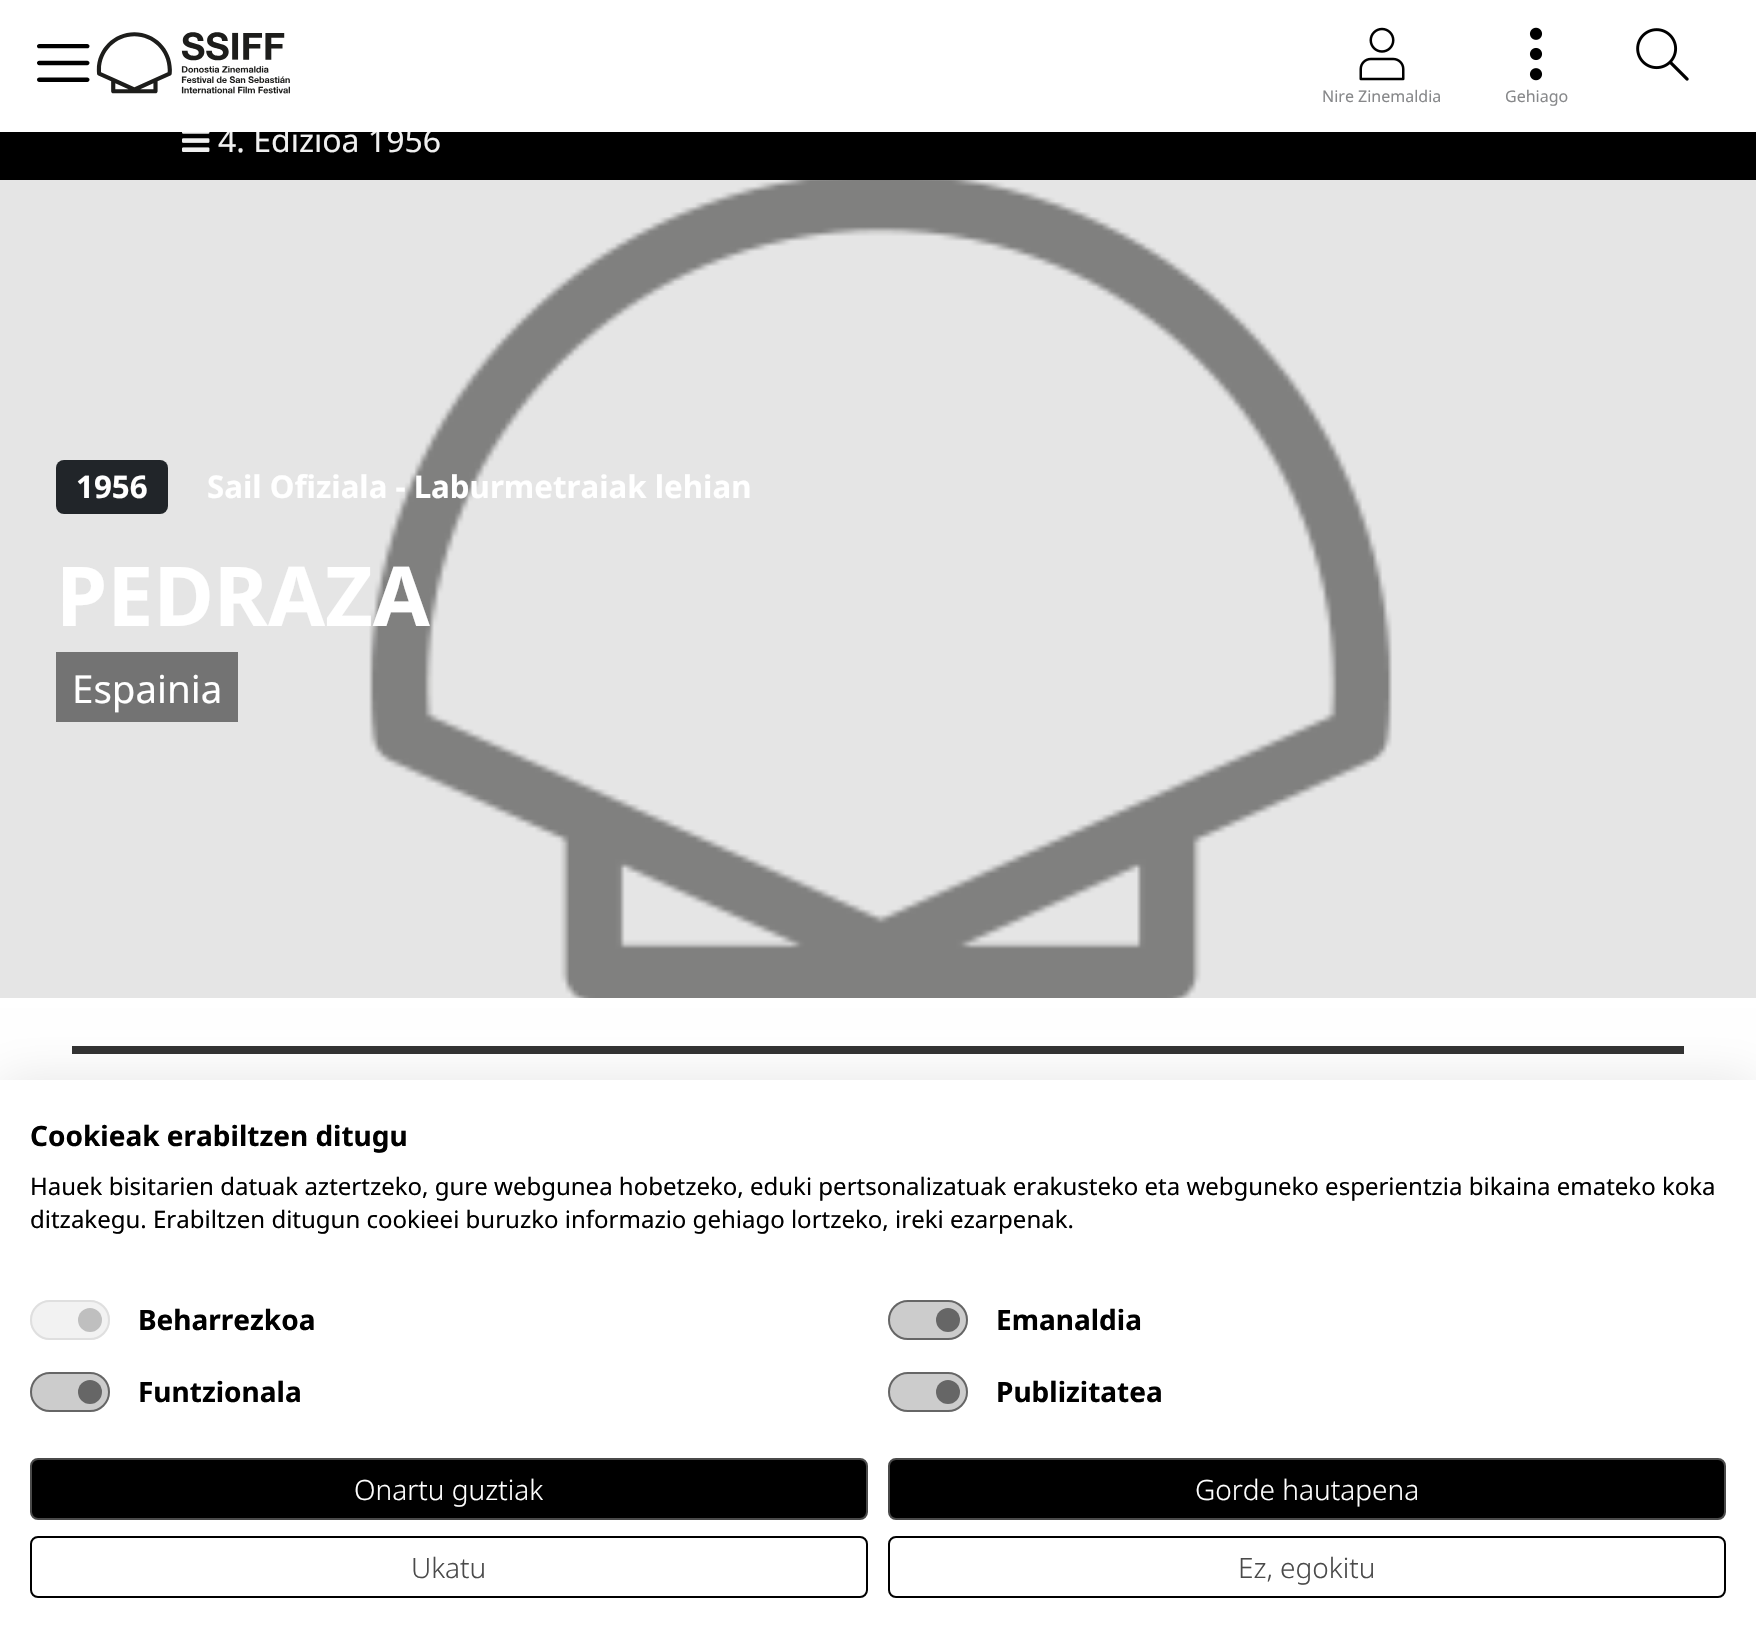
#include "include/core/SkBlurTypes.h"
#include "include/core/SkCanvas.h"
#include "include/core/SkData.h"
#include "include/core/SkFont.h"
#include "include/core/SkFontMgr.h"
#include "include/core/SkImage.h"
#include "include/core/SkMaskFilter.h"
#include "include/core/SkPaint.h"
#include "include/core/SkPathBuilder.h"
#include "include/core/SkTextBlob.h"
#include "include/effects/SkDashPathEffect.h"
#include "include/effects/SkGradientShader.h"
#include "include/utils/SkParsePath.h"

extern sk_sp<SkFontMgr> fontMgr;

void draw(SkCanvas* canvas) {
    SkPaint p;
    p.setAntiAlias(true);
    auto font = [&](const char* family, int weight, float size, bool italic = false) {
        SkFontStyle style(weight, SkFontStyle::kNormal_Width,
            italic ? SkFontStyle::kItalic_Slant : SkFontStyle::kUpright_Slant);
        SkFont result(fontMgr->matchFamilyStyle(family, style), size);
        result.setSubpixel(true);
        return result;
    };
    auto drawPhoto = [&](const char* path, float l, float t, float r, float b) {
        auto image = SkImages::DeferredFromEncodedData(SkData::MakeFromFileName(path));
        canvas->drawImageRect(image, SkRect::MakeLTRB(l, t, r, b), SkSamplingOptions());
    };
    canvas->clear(0xFFFFFFFF);
    p.setColor(0xFF000000);
    canvas->drawRect(SkRect::MakeLTRB(0, 132, 1756, 180), p);
    auto font1 = font("Noto Sans", 400, 32);
    p.setColor(0xFFF0F0F0);
    canvas->drawString("4. Edizioa 1956", 218, 152, font1, p);
    p.setColor(0xFFFFFFFF);
    canvas->drawRect(SkRect::MakeLTRB(227, 127, 438, 132), p);
    drawPhoto("media/1.png", 37, 32, 290, 94);
    drawPhoto("media/2.png", 1636, 28, 1689, 81);
    drawPhoto("media/3.png", 1359, 27, 1405, 81);
    auto font2 = font("Noto Sans", 400, 16);
    p.setColor(0xFF87888A);
    canvas->drawString("Nire Zinemaldia", 1322, 102, font2, p);
    drawPhoto("media/4.png", 1529, 27, 1543, 81);
    canvas->drawString("Gehiago", 1505, 102, font2, p);
    drawPhoto("media/5.png", 182, 132, 210, 152);
    drawPhoto("media/6.png", 0, 180, 1756, 998);
    p.setColor(0xFF212529);
    canvas->drawRoundRect(SkRect::MakeLTRB(56, 460, 168, 514), 8, 8, p);
    auto font3 = font("Noto Sans", 700, 31.25f);
    p.setColor(0xFFFFFFFF);
    canvas->drawString("1956", 76, 498, font3, p);
    canvas->drawString("Sail Ofiziala - Laburmetraiak lehian", 207, 498, font3, p);
    auto font4 = font("Noto Sans", 700, 82.5f);
    canvas->drawString("PEDRAZA", 56, 626, font4, p);
    p.setColor(0xFF737373);
    canvas->drawRect(SkRect::MakeLTRB(56, 652, 238, 722), p);
    auto font5 = font("Noto Sans", 400, 38.5f);
    p.setColor(0xFFFFFFFF);
    canvas->drawString("Espainia", 72, 703, font5, p);
    p.setColor(0xFF333333);
    canvas->drawRect(SkRect::MakeLTRB(72, 1046, 1684, 1054), p);
    p.setColor(0x1A000000);
    p.setMaskFilter(SkMaskFilter::MakeBlur(kNormal_SkBlurStyle, 24));
    canvas->drawRect(SkRect::MakeLTRB(0, 1080, 1756, 1652), p);
    p.setMaskFilter(nullptr);
    p.setColor(0xFFFFFFFF);
    canvas->drawRect(SkRect::MakeLTRB(0, 1080, 1756, 1652), p);
    auto font6 = font("Noto Sans", 700, 28);
    p.setColor(0xFF000000);
    canvas->drawString("Cookieak erabiltzen ditugu", 30, 1146, font6, p);
    auto font7 = font("Noto Sans", 400, 24);
    canvas->drawString("Hauek bisitarien datuak aztertzeko, gure webgunea hobetzeko, eduki pertsonalizatuak erakusteko eta webguneko esperientzia bikaina emateko koka", 30, 1195, font7, p);
    canvas->drawString("ditzakegu. Erabiltzen ditugun cookieei buruzko informazio gehiago lortzeko, ireki ezarpenak.", 30, 1228, font7, p);
    p.setColor(0xFFF2F2F2);
    canvas->drawRoundRect(SkRect::MakeLTRB(30, 1300, 110, 1340), 20, 20, p);
    p.setColor(0xFFBFBFBF);
    canvas->drawCircle(90, 1320, 12, p);
    p.setStyle(SkPaint::kStroke_Style);
    p.setStrokeWidth(2);
    p.setColor(0xFFDFDFDF);
    canvas->drawRoundRect(SkRect::MakeLTRB(31, 1301, 109, 1339), 19, 19, p);
    p.setStyle(SkPaint::kFill_Style);
    p.setColor(0xFF000000);
    canvas->drawString("Beharrezkoa", 138, 1330, font6, p);
    p.setColor(0xFFCCCCCC);
    canvas->drawRoundRect(SkRect::MakeLTRB(888, 1300, 968, 1340), 20, 20, p);
    p.setColor(0xFF666666);
    canvas->drawCircle(948, 1320, 12, p);
    p.setStyle(SkPaint::kStroke_Style);
    p.setColor(0x80000000);
    canvas->drawRoundRect(SkRect::MakeLTRB(889, 1301, 967, 1339), 19, 19, p);
    p.setStyle(SkPaint::kFill_Style);
    p.setColor(0xFF000000);
    canvas->drawString("Emanaldia", 996, 1330, font6, p);
    p.setColor(0xFFCCCCCC);
    canvas->drawRoundRect(SkRect::MakeLTRB(30, 1372, 110, 1412), 20, 20, p);
    p.setColor(0xFF666666);
    canvas->drawCircle(90, 1392, 12, p);
    p.setStyle(SkPaint::kStroke_Style);
    p.setColor(0x80000000);
    canvas->drawRoundRect(SkRect::MakeLTRB(31, 1373, 109, 1411), 19, 19, p);
    p.setStyle(SkPaint::kFill_Style);
    p.setColor(0xFF000000);
    canvas->drawString("Funtzionala", 138, 1402, font6, p);
    p.setColor(0xFFCCCCCC);
    canvas->drawRoundRect(SkRect::MakeLTRB(888, 1372, 968, 1412), 20, 20, p);
    p.setColor(0xFF666666);
    canvas->drawCircle(948, 1392, 12, p);
    p.setStyle(SkPaint::kStroke_Style);
    p.setColor(0x80000000);
    canvas->drawRoundRect(SkRect::MakeLTRB(889, 1373, 967, 1411), 19, 19, p);
    p.setStyle(SkPaint::kFill_Style);
    p.setColor(0xFF000000);
    canvas->drawString("Publizitatea", 996, 1402, font6, p);
    canvas->drawRoundRect(SkRect::MakeLTRB(31, 1459, 867, 1519), 7, 7, p);
    p.setStyle(SkPaint::kStroke_Style);
    p.setColor(0xFF4A4A4A);
    canvas->drawRoundRect(SkRect::MakeLTRB(31, 1459, 867, 1519), 7, 7, p);
    auto font8 = font("Noto Sans", 300, 28);
    p.setStyle(SkPaint::kFill_Style);
    p.setColor(0xFFFFFFFF);
    canvas->drawString("Onartu guztiak", 354, 1500, font8, p);
    p.setColor(0xFF000000);
    canvas->drawRoundRect(SkRect::MakeLTRB(889, 1459, 1725, 1519), 7, 7, p);
    p.setStyle(SkPaint::kStroke_Style);
    p.setColor(0xFF4A4A4A);
    canvas->drawRoundRect(SkRect::MakeLTRB(889, 1459, 1725, 1519), 7, 7, p);
    p.setStyle(SkPaint::kFill_Style);
    p.setColor(0xFFFFFFFF);
    canvas->drawString("Gorde hautapena", 1195, 1500, font8, p);
    p.setStyle(SkPaint::kStroke_Style);
    p.setColor(0xFF000000);
    canvas->drawRoundRect(SkRect::MakeLTRB(31, 1537, 867, 1597), 7, 7, p);
    p.setStyle(SkPaint::kFill_Style);
    p.setColor(0xFF4A4A4A);
    canvas->drawString("Ukatu", 411, 1578, font8, p);
    p.setStyle(SkPaint::kStroke_Style);
    p.setColor(0xFF000000);
    canvas->drawRoundRect(SkRect::MakeLTRB(889, 1537, 1725, 1597), 7, 7, p);
    p.setStyle(SkPaint::kFill_Style);
    p.setColor(0xFF4A4A4A);
    canvas->drawString("Ez, egokitu", 1238, 1578, font8, p);
}
